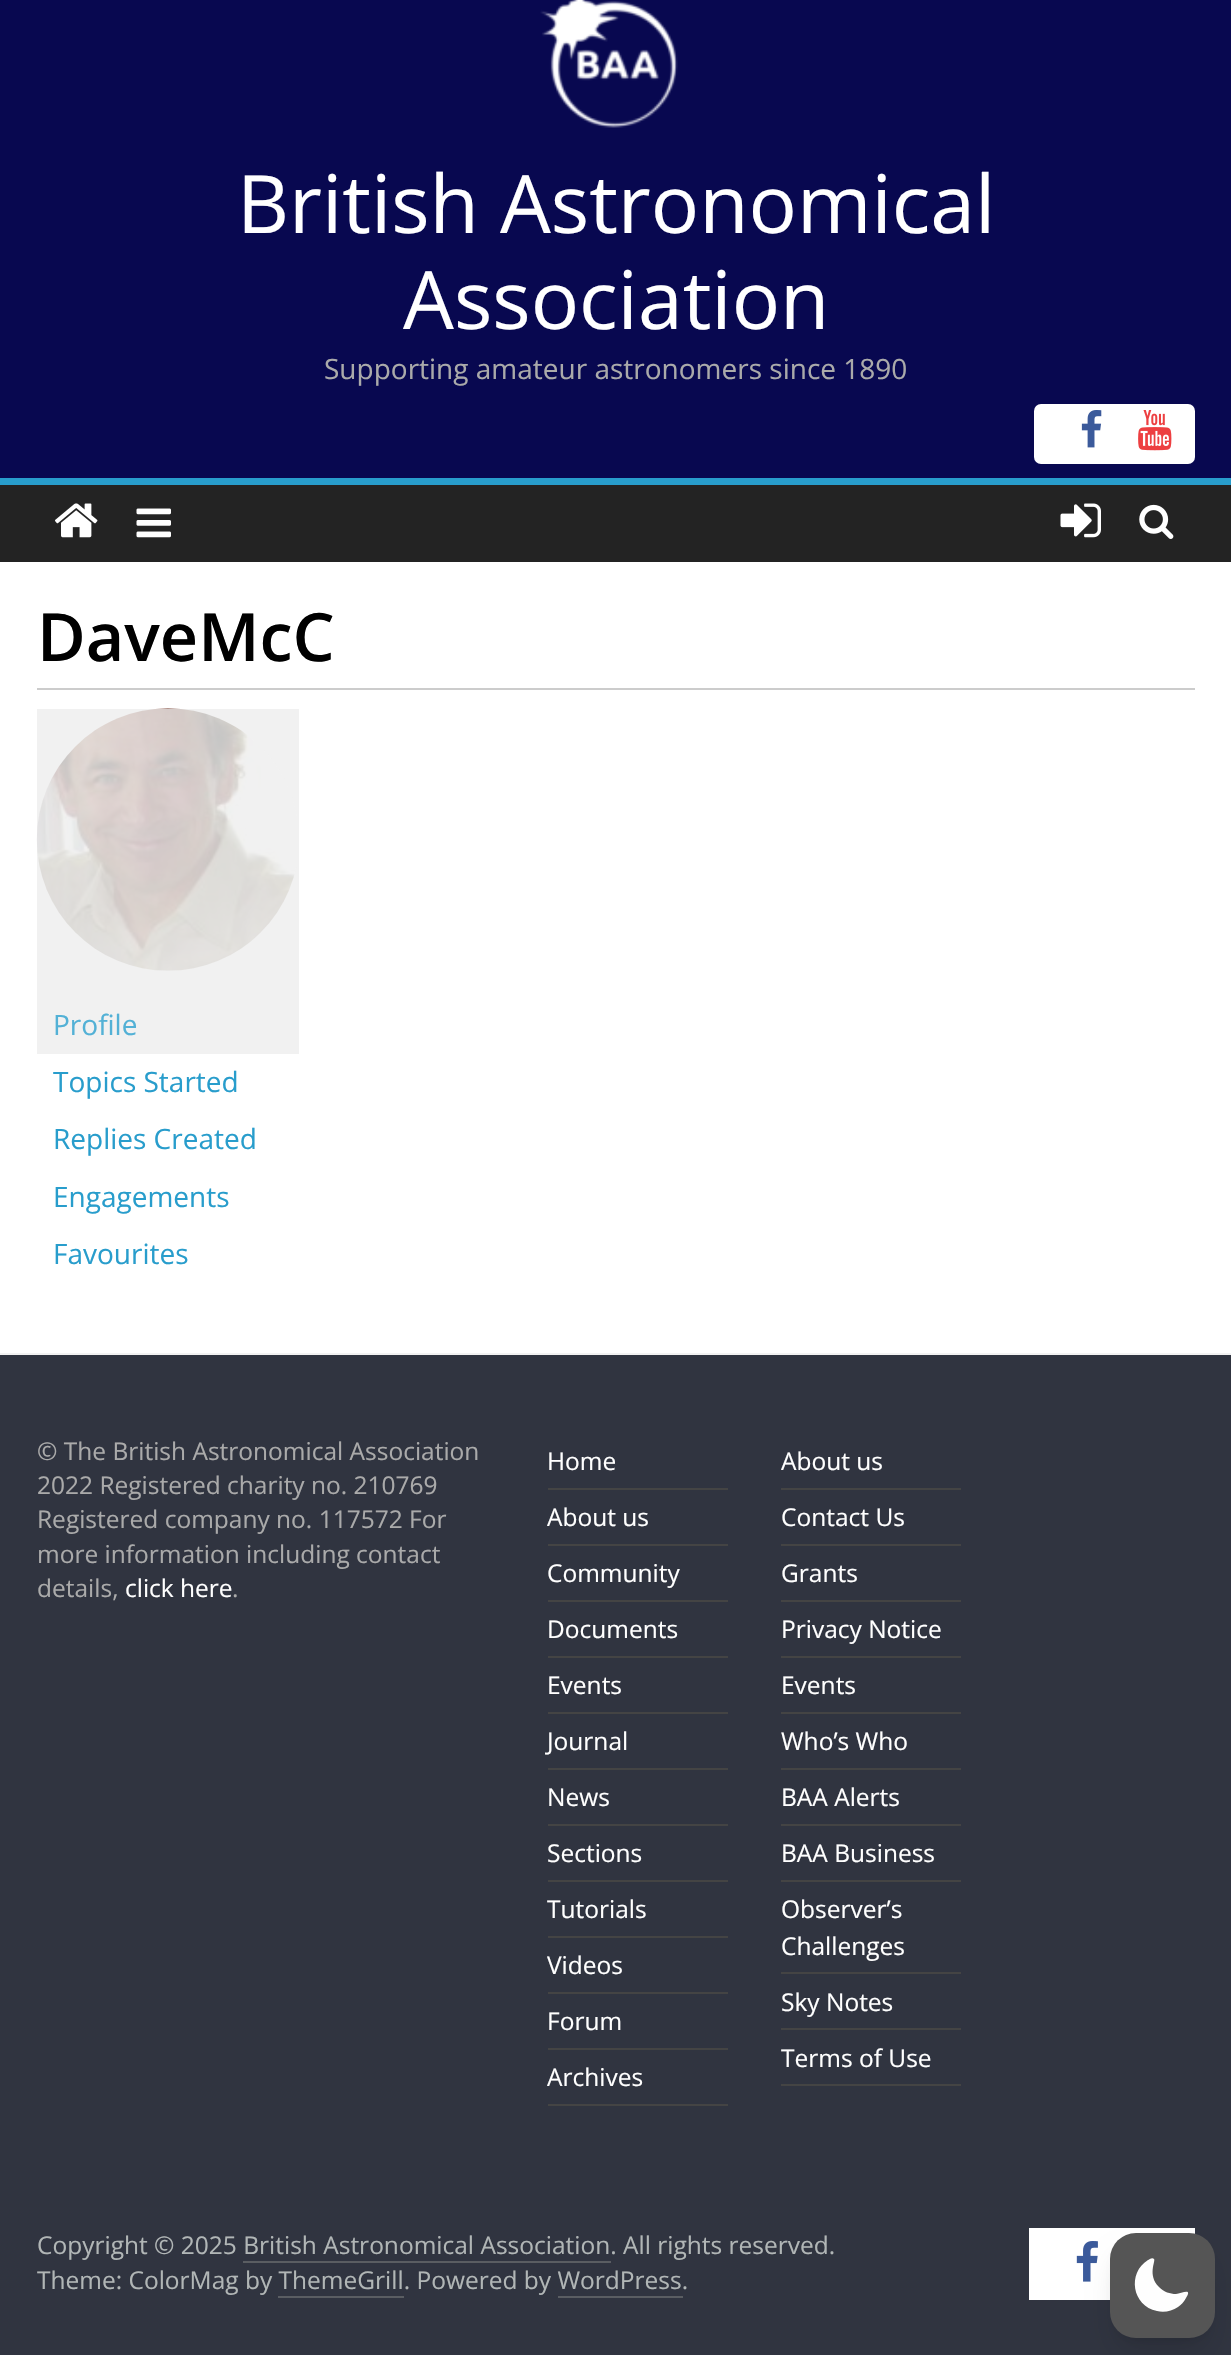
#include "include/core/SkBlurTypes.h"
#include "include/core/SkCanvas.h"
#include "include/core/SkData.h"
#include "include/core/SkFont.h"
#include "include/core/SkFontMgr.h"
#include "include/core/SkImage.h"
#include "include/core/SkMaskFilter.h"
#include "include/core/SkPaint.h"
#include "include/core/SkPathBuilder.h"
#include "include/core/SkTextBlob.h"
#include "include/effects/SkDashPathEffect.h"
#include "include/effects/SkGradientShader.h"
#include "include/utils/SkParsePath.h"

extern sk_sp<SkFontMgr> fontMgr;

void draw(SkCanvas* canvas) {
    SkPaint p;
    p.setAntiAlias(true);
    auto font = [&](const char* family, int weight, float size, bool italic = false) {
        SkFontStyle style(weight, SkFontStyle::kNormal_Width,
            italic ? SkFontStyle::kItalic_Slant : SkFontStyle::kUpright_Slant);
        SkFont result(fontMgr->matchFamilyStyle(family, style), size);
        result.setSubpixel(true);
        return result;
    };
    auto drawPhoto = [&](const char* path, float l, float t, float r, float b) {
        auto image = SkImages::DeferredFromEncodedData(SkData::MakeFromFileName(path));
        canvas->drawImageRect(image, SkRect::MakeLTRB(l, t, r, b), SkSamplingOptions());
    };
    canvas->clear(0xFF080850);
    drawPhoto("media/1.png", 540, 0, 678, 128);
    auto font1 = font("Open Sans", 400, 80.5f);
    p.setColor(0xFFFFFFFF);
    canvas->drawString("British Astronomical", 237, 233, font1, p);
    canvas->drawString("Association", 403, 329, font1, p);
    auto font2 = font("Open Sans", 400, 28);
    p.setColor(0xFFAAAAAA);
    canvas->drawString("Supporting amateur astronomers since 1890", 324, 379, font2, p);
    p.setColor(0xFFFFFFFF);
    canvas->drawRoundRect(SkRect::MakeLTRB(1034, 404, 1195, 464), 7, 7, p);
    drawPhoto("media/2.png", 1081, 410, 1102, 448);
    drawPhoto("media/3.png", 1138, 410, 1172, 451);
    p.setColor(0xFF232323);
    canvas->drawRect(SkRect::MakeLTRB(0, 485, 1231, 562), p);
    p.setColor(0xFF289DCC);
    canvas->drawRect(SkRect::MakeLTRB(0, 478, 1231, 485), p);
    drawPhoto("media/4.png", 55, 503, 98, 538);
    drawPhoto("media/5.png", 136, 508, 171, 538);
    drawPhoto("media/6.png", 1060, 503, 1101, 538);
    drawPhoto("media/7.png", 1139, 504, 1174, 539);
    {
        const struct { float l, t, r, b; SkColor color; } items[] = {
            {0, 562, 1231, 1353, 0xFFFFFFFF},
            {37, 709, 299, 1054, 0xFFF1F1F1},
            {37, 688, 1195, 690, 0xFFCCCCCC},
        };
        for (auto [l, t, r, b, color] : items) {
            p.setColor(color);
            canvas->drawRect(SkRect::MakeLTRB(l, t, r, b), p);
        }
    }
    auto font3 = font("Open Sans", 600, 66.5f);
    p.setColor(0xFF000000);
    canvas->drawString("DaveMcC", 37, 661, font3, p);
    drawPhoto("media/8.png", 36, 708, 297, 971);
    p.setColor(0xFF53B1D6);
    canvas->drawString("Profile", 53, 1035, font2, p);
    p.setColor(0xFF289DCC);
    {
        const struct { const char* s; float x, y; } items[] = {
            {"Topics Started", 53, 1092},
            {"Replies Created", 53, 1149},
            {"Engagements", 53, 1207},
            {"Favourites", 53, 1264},
        };
        for (auto [s, x, y] : items) {
            canvas->drawString(s, x, y, font2, p);
        }
    }
    p.setColor(0xFF303440);
    canvas->drawRect(SkRect::MakeLTRB(0, 1355, 1231, 2355), p);
    p.setColor(0xFFF2F2F2);
    canvas->drawRect(SkRect::MakeLTRB(0, 1353, 1231, 1355), p);
    auto font4 = font("Open Sans", 400, 24.5f);
    p.setColor(0xFFAAAAAA);
    {
        const struct { const char* s; float x, y; } items[] = {
            {"© The British Astronomical Association", 37, 1460},
            {"2022 Registered charity no. 210769", 37, 1494},
            {"Registered company no. 117572 For", 37, 1528},
            {"more information including contact", 37, 1563},
            {"details,", 37, 1597},
        };
        for (auto [s, x, y] : items) {
            canvas->drawString(s, x, y, font4, p);
        }
    }
    p.setColor(0xFFFFFFFF);
    canvas->drawString("click here", 125, 1597, font4, p);
    p.setColor(0xFFAAAAAA);
    canvas->drawString(".", 232, 1597, font4, p);
    p.setColor(0xFF444444);
    canvas->drawRect(SkRect::MakeLTRB(548, 1488, 728, 1490), p);
    p.setColor(0xFFFFFFFF);
    canvas->drawString("Home", 547, 1470, font4, p);
    p.setColor(0xFF444444);
    canvas->drawRect(SkRect::MakeLTRB(548, 1544, 728, 1546), p);
    p.setColor(0xFFFFFFFF);
    canvas->drawString("About us", 547, 1526, font4, p);
    p.setColor(0xFF444444);
    canvas->drawRect(SkRect::MakeLTRB(548, 1600, 728, 1602), p);
    p.setColor(0xFFFFFFFF);
    canvas->drawString("Community", 547, 1582, font4, p);
    p.setColor(0xFF444444);
    canvas->drawRect(SkRect::MakeLTRB(548, 1656, 728, 1658), p);
    p.setColor(0xFFFFFFFF);
    canvas->drawString("Documents", 547, 1638, font4, p);
    p.setColor(0xFF444444);
    canvas->drawRect(SkRect::MakeLTRB(548, 1712, 728, 1714), p);
    p.setColor(0xFFFFFFFF);
    canvas->drawString("Events", 547, 1694, font4, p);
    p.setColor(0xFF444444);
    canvas->drawRect(SkRect::MakeLTRB(548, 1768, 728, 1770), p);
    p.setColor(0xFFFFFFFF);
    canvas->drawString("Journal", 547, 1750, font4, p);
    p.setColor(0xFF444444);
    canvas->drawRect(SkRect::MakeLTRB(548, 1824, 728, 1826), p);
    p.setColor(0xFFFFFFFF);
    canvas->drawString("News", 547, 1806, font4, p);
    p.setColor(0xFF444444);
    canvas->drawRect(SkRect::MakeLTRB(548, 1880, 728, 1882), p);
    p.setColor(0xFFFFFFFF);
    canvas->drawString("Sections", 547, 1862, font4, p);
    p.setColor(0xFF444444);
    canvas->drawRect(SkRect::MakeLTRB(548, 1936, 728, 1938), p);
    p.setColor(0xFFFFFFFF);
    canvas->drawString("Tutorials", 547, 1918, font4, p);
    p.setColor(0xFF444444);
    canvas->drawRect(SkRect::MakeLTRB(548, 1992, 728, 1994), p);
    p.setColor(0xFFFFFFFF);
    canvas->drawString("Videos", 547, 1974, font4, p);
    p.setColor(0xFF444444);
    canvas->drawRect(SkRect::MakeLTRB(548, 2048, 728, 2050), p);
    p.setColor(0xFFFFFFFF);
    canvas->drawString("Forum", 547, 2030, font4, p);
    p.setColor(0xFF444444);
    canvas->drawRect(SkRect::MakeLTRB(548, 2104, 728, 2106), p);
    p.setColor(0xFFFFFFFF);
    canvas->drawString("Archives", 547, 2086, font4, p);
    p.setColor(0xFF444444);
    canvas->drawRect(SkRect::MakeLTRB(781, 1488, 961, 1490), p);
    p.setColor(0xFFFFFFFF);
    canvas->drawString("About us", 781, 1470, font4, p);
    p.setColor(0xFF444444);
    canvas->drawRect(SkRect::MakeLTRB(781, 1544, 961, 1546), p);
    p.setColor(0xFFFFFFFF);
    canvas->drawString("Contact Us", 781, 1526, font4, p);
    p.setColor(0xFF444444);
    canvas->drawRect(SkRect::MakeLTRB(781, 1600, 961, 1602), p);
    p.setColor(0xFFFFFFFF);
    canvas->drawString("Grants", 781, 1582, font4, p);
    p.setColor(0xFF444444);
    canvas->drawRect(SkRect::MakeLTRB(781, 1656, 961, 1658), p);
    p.setColor(0xFFFFFFFF);
    canvas->drawString("Privacy Notice", 781, 1638, font4, p);
    p.setColor(0xFF444444);
    canvas->drawRect(SkRect::MakeLTRB(781, 1712, 961, 1714), p);
    p.setColor(0xFFFFFFFF);
    canvas->drawString("Events", 781, 1694, font4, p);
    p.setColor(0xFF444444);
    canvas->drawRect(SkRect::MakeLTRB(781, 1768, 961, 1770), p);
    p.setColor(0xFFFFFFFF);
    canvas->drawString("Who’s Who", 781, 1750, font4, p);
    p.setColor(0xFF444444);
    canvas->drawRect(SkRect::MakeLTRB(781, 1824, 961, 1826), p);
    p.setColor(0xFFFFFFFF);
    canvas->drawString("BAA Alerts", 781, 1806, font4, p);
    p.setColor(0xFF444444);
    canvas->drawRect(SkRect::MakeLTRB(781, 1880, 961, 1882), p);
    p.setColor(0xFFFFFFFF);
    canvas->drawString("BAA Business", 781, 1862, font4, p);
    p.setColor(0xFF444444);
    canvas->drawRect(SkRect::MakeLTRB(781, 1972, 961, 1974), p);
    p.setColor(0xFFFFFFFF);
    canvas->drawString("Observer’s", 781, 1918, font4, p);
    canvas->drawString("Challenges", 781, 1955, font4, p);
    p.setColor(0xFF444444);
    canvas->drawRect(SkRect::MakeLTRB(781, 2028, 961, 2030), p);
    p.setColor(0xFFFFFFFF);
    canvas->drawString("Sky Notes", 781, 2011, font4, p);
    p.setColor(0xFF444444);
    canvas->drawRect(SkRect::MakeLTRB(781, 2084, 961, 2086), p);
    p.setColor(0xFFFFFFFF);
    canvas->drawString("Terms of Use", 781, 2067, font4, p);
    p.setColor(0xFFB1B6B6);
    canvas->drawString("Copyright © 2025 British Astronomical Association. All rights reserved.", 37, 2254, font4, p);
    p.setColor(0xFF5A5D62);
    canvas->drawRect(SkRect::MakeLTRB(243, 2261, 611, 2263), p);
    p.setColor(0xFFB1B6B6);
    canvas->drawString("Theme: ColorMag by ThemeGrill. Powered by WordPress.", 37, 2289, font4, p);
    {
        const struct { float l, t, r, b; SkColor color; } items[] = {
            {278, 2296, 404, 2298, 0xFF5A5D62},
            {558, 2296, 683, 2298, 0xFF5A5D62},
            {1029, 2228, 1195, 2300, 0xFFFFFFFF},
        };
        for (auto [l, t, r, b, color] : items) {
            p.setColor(color);
            canvas->drawRect(SkRect::MakeLTRB(l, t, r, b), p);
        }
    }
    drawPhoto("media/9.png", 1076, 2241, 1098, 2282);
    p.setColor(0x1A000000);
    p.setMaskFilter(SkMaskFilter::MakeBlur(kNormal_SkBlurStyle, 5));
    canvas->drawRoundRect(SkRect::MakeLTRB(1117, 2247, 1208, 2338), 19, 19, p);
    p.setMaskFilter(nullptr);
    p.setMaskFilter(SkMaskFilter::MakeBlur(kNormal_SkBlurStyle, 13));
    canvas->drawRoundRect(SkRect::MakeLTRB(1115, 2256, 1209, 2350), 21, 21, p);
    p.setMaskFilter(nullptr);
    p.setColor(0xFF555555);
    canvas->drawRoundRect(SkRect::MakeLTRB(1110, 2233, 1215, 2338), 26, 26, p);
    p.setColor(0xFFFEFEFE);
    canvas->drawPath(SkPathBuilder(SkPathFillType::kEvenOdd).moveTo(1154, 2259).cubicTo(1156, 2261, 1147, 2275, 1159, 2287).cubicTo(1164, 2292, 1170, 2294, 1176, 2294).cubicTo(1181, 2294, 1193, 2287, 1186, 2298).cubicTo(1184, 2302, 1181, 2305, 1178, 2307).cubicTo(1172, 2311, 1164, 2313, 1157, 2311).cubicTo(1132, 2306, 1127, 2273, 1148, 2260).cubicTo(1149, 2260, 1152, 2257, 1154, 2259).close().detach(), p);
}
